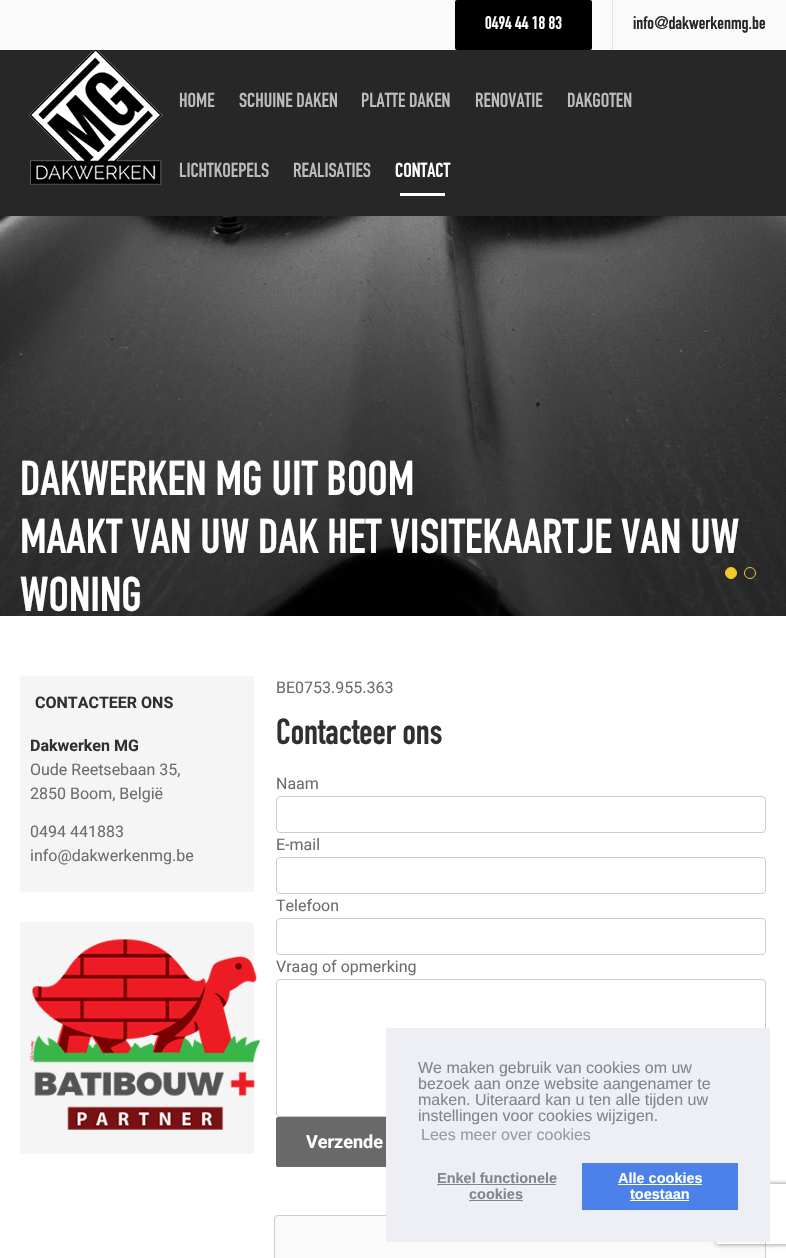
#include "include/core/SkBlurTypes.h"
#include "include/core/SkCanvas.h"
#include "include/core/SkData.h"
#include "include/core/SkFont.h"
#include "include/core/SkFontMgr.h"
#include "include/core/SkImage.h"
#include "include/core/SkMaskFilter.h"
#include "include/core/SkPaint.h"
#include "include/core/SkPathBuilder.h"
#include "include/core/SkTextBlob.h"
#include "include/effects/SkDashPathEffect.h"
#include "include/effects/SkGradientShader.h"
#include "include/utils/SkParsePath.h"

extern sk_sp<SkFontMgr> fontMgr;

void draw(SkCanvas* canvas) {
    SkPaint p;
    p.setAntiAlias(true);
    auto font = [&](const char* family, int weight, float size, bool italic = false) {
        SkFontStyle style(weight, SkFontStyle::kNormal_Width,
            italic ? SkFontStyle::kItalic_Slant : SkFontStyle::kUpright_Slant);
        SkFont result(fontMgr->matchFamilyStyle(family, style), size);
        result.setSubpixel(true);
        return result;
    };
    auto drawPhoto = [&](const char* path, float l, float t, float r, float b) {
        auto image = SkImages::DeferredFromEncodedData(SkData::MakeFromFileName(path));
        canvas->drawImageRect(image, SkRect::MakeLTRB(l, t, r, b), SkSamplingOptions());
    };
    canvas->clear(0xFFFFFFFF);
    p.setColor(0xFFFAFAFA);
    canvas->drawRect(SkRect::MakeLTRB(0, 0, 786, 50), p);
    p.setColor(0xFF000000);
    canvas->drawRoundRect(SkRect::MakeLTRB(455, 0, 592, 50), 2, 2, p);
    auto font1 = font("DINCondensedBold", 700, 18);
    p.setColor(0xFFFFFFFF);
    canvas->drawString("0494 44 18 83", 485, 29, font1, p);
    p.setColor(0xFFE2E2E2);
    canvas->drawRect(SkRect::MakeLTRB(612, 0, 613, 50), p);
    p.setColor(0xFF272727);
    canvas->drawString("info@dakwerkenmg.be", 633, 29, font1, p);
    canvas->drawRect(SkRect::MakeLTRB(0, 50, 786, 216), p);
    drawPhoto("media/1.png", 29, 50, 163, 185);
    auto font2 = font("DINCondensedBold", 700, 20);
    p.setColor(0xFFBDBCB9);
    {
        const struct { const char* s; float x, y; } items[] = {
            {"HOME", 179, 107},
            {"SCHUINE DAKEN", 239, 107},
            {"PLATTE DAKEN", 361, 107},
            {"RENOVATIE", 475, 107},
            {"DAKGOTEN", 567, 107},
            {"LICHTKOEPELS", 179, 177},
            {"REALISATIES", 293, 177},
        };
        for (auto [s, x, y] : items) {
            canvas->drawString(s, x, y, font2, p);
        }
    }
    p.setColor(0xFFFFFFFF);
    canvas->drawString("CONTACT", 395, 177, font2, p);
    canvas->drawRect(SkRect::MakeLTRB(400, 193, 445, 196), p);
    drawPhoto("media/2.png", 0, 216, 786, 616);
    auto font3 = font("DINCondensedBold", 700, 48);
    {
        const struct { const char* s; float x, y; } items[] = {
            {"DAKWERKEN MG UIT BOOM", 20, 495},
            {"MAAKT VAN UW DAK HET VISITEKAARTJE VAN UW", 20, 553},
            {"WONING", 20, 611},
        };
        for (auto [s, x, y] : items) {
            canvas->drawString(s, x, y, font3, p);
        }
    }
    p.setColor(0xFFF0C92C);
    canvas->drawCircle(731, 573, 5.5f, p);
    p.setStyle(SkPaint::kStroke_Style);
    p.setStrokeWidth(1);
    canvas->drawCircle(731, 573, 5.5f, p);
    canvas->drawCircle(750, 573, 5.5f, p);
    p.setStyle(SkPaint::kFill_Style);
    p.setColor(0xFFF5F5F5);
    canvas->drawRoundRect(SkRect::MakeLTRB(20, 676, 254, 892), 3, 3, p);
    auto font4 = font("Roboto", 700, 16);
    p.setColor(0xFF30302F);
    canvas->drawString("CONTACTEER ONS", 35, 708, font4, p);
    canvas->drawString("Dakwerken MG", 30, 751, font4, p);
    auto font5 = font("Roboto", 400, 16);
    p.setColor(0xFF6E6D6C);
    {
        const struct { const char* s; float x, y; } items[] = {
            {"Oude Reetsebaan 35,", 30, 775},
            {"2850 Boom, België", 30, 799},
            {"0494 441883", 30, 837},
            {"info@dakwerkenmg.be", 30, 861},
        };
        for (auto [s, x, y] : items) {
            canvas->drawString(s, x, y, font5, p);
        }
    }
    p.setColor(0xFFF5F5F5);
    canvas->drawRoundRect(SkRect::MakeLTRB(20, 922, 254, 1154), 3, 3, p);
    drawPhoto("media/3.png", 30, 939, 260, 1130);
    p.setColor(0xFF6E6D6C);
    canvas->drawString("BE0753.955.363", 276, 693, font5, p);
    auto font6 = font("DINCondensedBold", 700, 36);
    p.setColor(0xFF30302F);
    canvas->drawString("Contacteer ons", 276, 744, font6, p);
    p.setColor(0xFF6E6D6C);
    canvas->drawString("Naam", 276, 789, font5, p);
    p.setStyle(SkPaint::kStroke_Style);
    p.setColor(0xFFCCCCCC);
    canvas->drawRoundRect(SkRect::MakeLTRB(276.5f, 796.5f, 765.5f, 832.5f), 3.5f, 3.5f, p);
    p.setStyle(SkPaint::kFill_Style);
    p.setColor(0xFF6E6D6C);
    canvas->drawString("E-mail", 276, 850, font5, p);
    p.setStyle(SkPaint::kStroke_Style);
    p.setColor(0xFFCCCCCC);
    canvas->drawRoundRect(SkRect::MakeLTRB(276.5f, 857.5f, 765.5f, 893.5f), 3.5f, 3.5f, p);
    p.setStyle(SkPaint::kFill_Style);
    p.setColor(0xFF6E6D6C);
    canvas->drawString("Telefoon", 276, 911, font5, p);
    p.setStyle(SkPaint::kStroke_Style);
    p.setColor(0xFFCCCCCC);
    canvas->drawRoundRect(SkRect::MakeLTRB(276.5f, 918.5f, 765.5f, 954.5f), 3.5f, 3.5f, p);
    p.setStyle(SkPaint::kFill_Style);
    p.setColor(0xFF6E6D6C);
    canvas->drawString("Vraag of opmerking", 276, 972, font5, p);
    p.setStyle(SkPaint::kStroke_Style);
    p.setColor(0xFFCCCCCC);
    canvas->drawRoundRect(SkRect::MakeLTRB(276.5f, 979.5f, 765.5f, 1116.5f), 3.5f, 3.5f, p);
    p.setStyle(SkPaint::kFill_Style);
    p.setColor(0xFF696969);
    canvas->drawRoundRect(SkRect::MakeLTRB(276, 1117, 423, 1167), 2, 2, p);
    auto font7 = font("Roboto", 700, 18);
    p.setColor(0xFFFFFFFF);
    canvas->drawString("Verzende", 306, 1148, font7, p);
    p.setColor(0xFFFAFAFA);
    canvas->drawRoundRect(SkRect::MakeLTRB(274.5f, 1215.5f, 765.5f, 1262.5f), 3.5f, 3.5f, p);
    p.setStyle(SkPaint::kStroke_Style);
    p.setColor(0xFFCCCCCC);
    canvas->drawRoundRect(SkRect::MakeLTRB(274.5f, 1215.5f, 765.5f, 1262.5f), 3.5f, 3.5f, p);
    canvas->save();
    canvas->clipPath(SkPathBuilder(SkPathFillType::kEvenOdd).moveTo(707, 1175).lineTo(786, 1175).lineTo(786, 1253).lineTo(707, 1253).close().moveTo(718, 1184).lineTo(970, 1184).cubicTo(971, 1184, 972, 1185, 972, 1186).lineTo(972, 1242).cubicTo(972, 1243, 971, 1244, 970, 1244).lineTo(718, 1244).cubicTo(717, 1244, 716, 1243, 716, 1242).lineTo(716, 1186).cubicTo(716, 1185, 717, 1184, 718, 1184).close().detach(), true);
    p.setStyle(SkPaint::kFill_Style);
    p.setColor(0xFF808080);
    p.setMaskFilter(SkMaskFilter::MakeBlur(kNormal_SkBlurStyle, 2.5f));
    canvas->drawRoundRect(SkRect::MakeLTRB(716, 1184, 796, 1244), 2, 2, p);
    p.setMaskFilter(nullptr);
    canvas->restore();
    p.setColor(0xFFEDEFF5);
    canvas->drawRect(SkRect::MakeLTRB(386, 1028, 770, 1242), p);
    auto font8 = font("Liberation Sans", 400, 16);
    p.setColor(0xFF838391);
    {
        const struct { const char* s; float x, y; } items[] = {
            {"We maken gebruik van cookies om uw", 418, 1073},
            {"bezoek aan onze website aangenamer te", 418, 1089},
            {"maken. Uiteraard kan u ten alle tijden uw", 418, 1105},
            {"instellingen voor cookies wijzigen.", 418, 1121},
        };
        for (auto [s, x, y] : items) {
            canvas->drawString(s, x, y, font8, p);
        }
    }
    p.setColor(0xFF9899A5);
    canvas->drawString("Lees meer over cookies", 421, 1140, font8, p);
    auto font9 = font("Liberation Sans", 700, 14.5f);
    p.setColor(0xFF838391);
    canvas->drawString("Enkel functionele", 437, 1183, font9, p);
    canvas->drawRect(SkRect::MakeLTRB(437, 1184, 556, 1185), p);
    canvas->drawString("cookies", 469, 1199, font9, p);
    canvas->drawRect(SkRect::MakeLTRB(469, 1200, 523, 1201), p);
    p.setColor(0xFF4B81E8);
    canvas->drawRect(SkRect::MakeLTRB(582, 1163, 738, 1210), p);
    p.setColor(0xFFFFFFFF);
    canvas->drawString("Alle cookies", 618, 1183, font9, p);
    canvas->drawRect(SkRect::MakeLTRB(618, 1184, 702, 1185), p);
    canvas->drawString("toestaan", 630, 1199, font9, p);
    canvas->drawRect(SkRect::MakeLTRB(630, 1200, 689, 1201), p);
}
